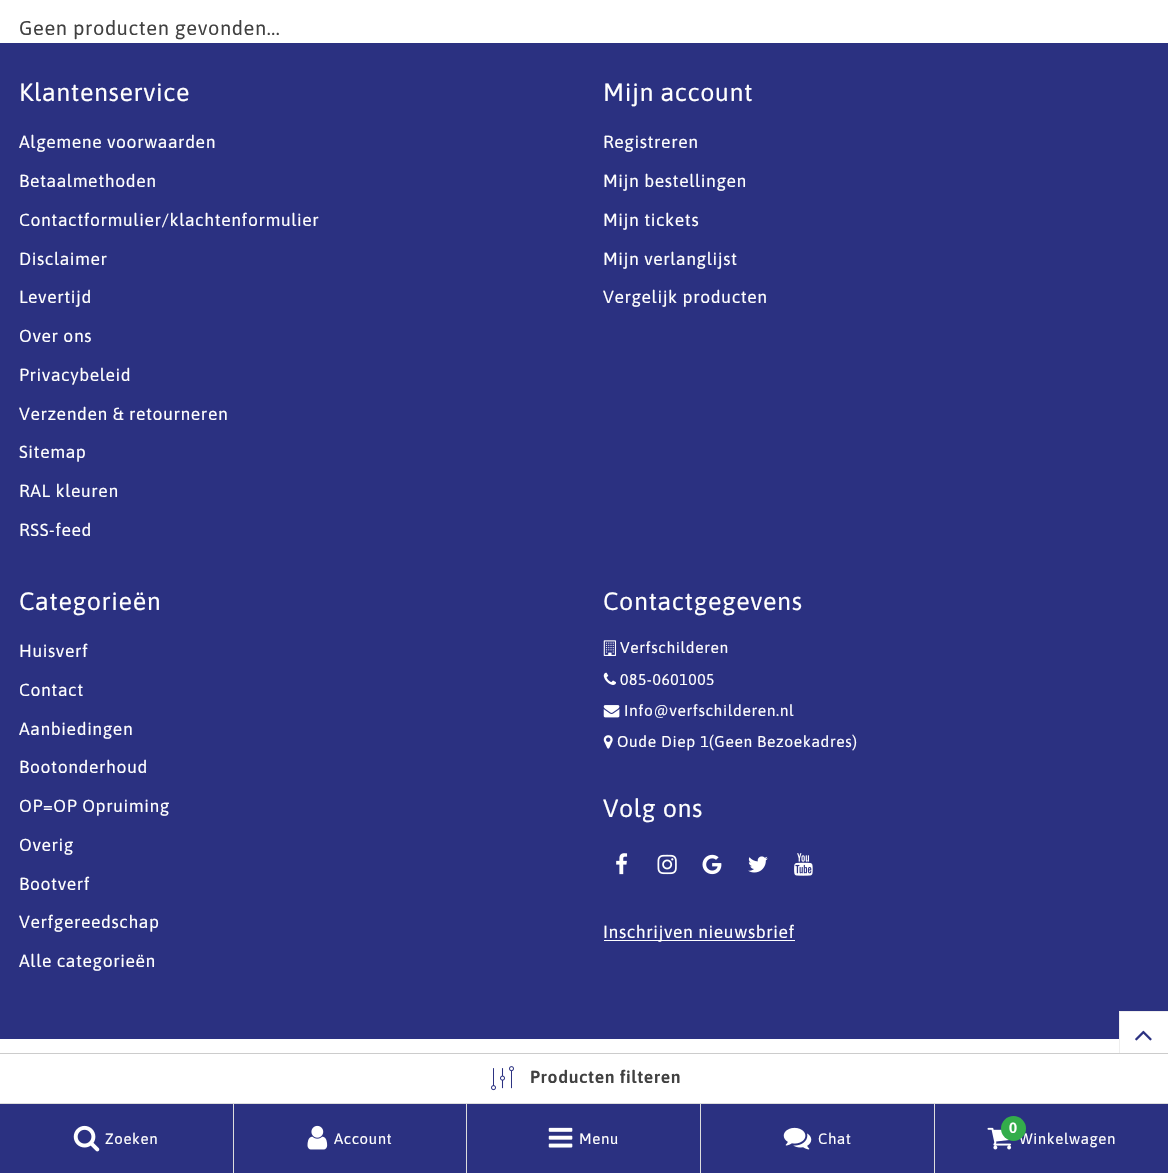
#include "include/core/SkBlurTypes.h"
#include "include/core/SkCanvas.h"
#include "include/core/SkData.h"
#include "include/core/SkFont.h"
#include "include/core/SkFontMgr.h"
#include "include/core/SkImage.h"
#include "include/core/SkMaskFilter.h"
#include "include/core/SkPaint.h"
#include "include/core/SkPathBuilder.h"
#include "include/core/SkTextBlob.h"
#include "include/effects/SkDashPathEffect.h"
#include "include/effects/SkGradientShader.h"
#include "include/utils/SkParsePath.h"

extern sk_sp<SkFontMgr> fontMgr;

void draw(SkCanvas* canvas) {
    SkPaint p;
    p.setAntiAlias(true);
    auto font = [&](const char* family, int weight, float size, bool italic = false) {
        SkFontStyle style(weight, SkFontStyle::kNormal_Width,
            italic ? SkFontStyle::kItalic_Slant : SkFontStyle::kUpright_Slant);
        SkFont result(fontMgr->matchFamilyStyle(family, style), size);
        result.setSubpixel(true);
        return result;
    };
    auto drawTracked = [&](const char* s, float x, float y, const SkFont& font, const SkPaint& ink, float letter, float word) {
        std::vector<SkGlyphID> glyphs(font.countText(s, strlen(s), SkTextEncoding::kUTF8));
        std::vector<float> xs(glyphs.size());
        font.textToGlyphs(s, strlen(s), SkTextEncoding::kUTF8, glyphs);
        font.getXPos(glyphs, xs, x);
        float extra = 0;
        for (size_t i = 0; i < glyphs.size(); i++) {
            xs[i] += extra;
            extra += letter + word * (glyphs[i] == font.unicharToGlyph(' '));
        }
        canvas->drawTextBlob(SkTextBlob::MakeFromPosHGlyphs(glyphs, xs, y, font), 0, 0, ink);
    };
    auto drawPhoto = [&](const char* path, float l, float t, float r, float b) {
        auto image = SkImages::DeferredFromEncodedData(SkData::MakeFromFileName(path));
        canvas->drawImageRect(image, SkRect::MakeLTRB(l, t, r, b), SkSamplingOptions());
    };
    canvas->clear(0xFFFFFFFF);
    auto font1 = font("Asap", 400, 20);
    p.setColor(0xFF414141);
    drawTracked("Geen producten gevonden...", 19, 35, font1, p, 0.6f, 0);
    p.setColor(0xFF2B3181);
    canvas->drawRect(SkRect::MakeLTRB(0, 43, 1168, 1039), p);
    auto font2 = font("Asap", 400, 25);
    p.setColor(0xFFFFFFFF);
    drawTracked("Klantenservice", 19, 101, font2, p, 0.6f, 0);
    auto font3 = font("Asap", 400, 17.5f);
    {
        const struct { const char* s; float x, y; } items[] = {
            {"Algemene voorwaarden", 19, 148},
            {"Betaalmethoden", 19, 187},
            {"Contactformulier/klachtenformulier", 19, 226},
            {"Disclaimer", 19, 265},
            {"Levertijd", 19, 303},
            {"Over ons", 19, 342},
            {"Privacybeleid", 19, 381},
            {"Verzenden & retourneren", 19, 420},
            {"Sitemap", 19, 458},
            {"RAL kleuren", 19, 497},
            {"RSS-feed", 19, 536},
        };
        for (auto [s, x, y] : items) {
            drawTracked(s, x, y, font3, p, 0.6f, 0);
        }
    }
    drawTracked("Mijn account", 603, 101, font2, p, 0.6f, 0);
    {
        const struct { const char* s; float x, y; } items[] = {
            {"Registreren", 603, 148},
            {"Mijn bestellingen", 603, 187},
            {"Mijn tickets", 603, 226},
            {"Mijn verlanglijst", 603, 265},
            {"Vergelijk producten", 603, 303},
        };
        for (auto [s, x, y] : items) {
            drawTracked(s, x, y, font3, p, 0.6f, 0);
        }
    }
    drawTracked("Categorieën", 19, 610, font2, p, 0.6f, 0);
    {
        const struct { const char* s; float x, y; } items[] = {
            {"Huisverf", 19, 657},
            {"Contact", 19, 696},
            {"Aanbiedingen", 19, 735},
            {"Bootonderhoud", 19, 773},
            {"OP=OP Opruiming", 19, 812},
            {"Overig", 19, 851},
            {"Bootverf", 19, 890},
            {"Verfgereedschap", 19, 928},
            {"Alle categorieën", 19, 967},
        };
        for (auto [s, x, y] : items) {
            drawTracked(s, x, y, font3, p, 0.6f, 0);
        }
    }
    drawTracked("Contactgegevens", 603, 610, font2, p, 0.6f, 0);
    drawPhoto("media/1.png", 603, 640, 617, 656);
    auto font4 = font("Asap", 400, 15.6f);
    drawTracked("Verfschilderen", 620, 653, font4, p, 0.6f, 0);
    drawPhoto("media/2.png", 603, 672, 616, 685);
    drawTracked("085-0601005", 620, 685, font4, p, 0.6f, 0);
    drawPhoto("media/3.png", 603, 705, 620, 718);
    drawTracked("Info@verfschilderen.nl", 624, 716, font4, p, 0.6f, 0);
    drawPhoto("media/4.png", 603, 735, 613, 749);
    drawTracked("Oude Diep 1(Geen Bezoekadres)", 617, 747, font4, p, 0.6f, 0);
    drawTracked("Volg ons", 603, 817, font2, p, 0.6f, 0);
    drawPhoto("media/5.png", 616, 853, 628, 875);
    drawPhoto("media/6.png", 657, 854, 677, 875);
    drawPhoto("media/7.png", 702, 854, 722, 875);
    drawPhoto("media/8.png", 748, 856, 768, 873);
    drawPhoto("media/9.png", 794, 853, 813, 876);
    canvas->drawRect(SkRect::MakeLTRB(604, 940, 795, 941), p);
    drawTracked("Inschrijven nieuwsbrief", 603, 938, font3, p, 0.6f, 0);
    canvas->drawRect(SkRect::MakeLTRB(1120, 1012, 1168, 1039), p);
    p.setStyle(SkPaint::kStroke_Style);
    p.setStrokeWidth(1);
    p.setColor(0xFFEEEEEE);
    canvas->drawRect(SkRect::MakeLTRB(1119.5f, 1011.5f, 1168.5f, 1060.5f), p);
    drawPhoto("media/10.png", 1135, 1030, 1152, 1041);
    p.setStyle(SkPaint::kFill_Style);
    p.setColor(0xFFFFFFFF);
    canvas->drawRect(SkRect::MakeLTRB(1119, 1054, 1168, 1061), p);
    p.setColor(0xFFCCCCCC);
    canvas->drawRect(SkRect::MakeLTRB(0, 1053, 1168, 1054), p);
    drawPhoto("media/11.png", 491, 1066, 514, 1091);
    auto font5 = font("Asap", 600, 17.5f);
    p.setColor(0xFF414141);
    drawTracked("Producten filteren", 530, 1083, font5, p, 0.6f, 0);
    {
        const struct { float l, t, r, b; SkColor color; } items[] = {
            {0, 1104, 233, 1173, 0xFF2B3181},
            {0, 1103, 1168, 1104, 0xFFDDDDDD},
            {233, 1103, 234, 1173, 0xFFDDDDDD},
        };
        for (auto [l, t, r, b, color] : items) {
            p.setColor(color);
            canvas->drawRect(SkRect::MakeLTRB(l, t, r, b), p);
        }
    }
    drawPhoto("media/12.png", 73, 1125, 100, 1152);
    auto font6 = font("Asap", 400, 15);
    p.setColor(0xFFFFFFFF);
    drawTracked("Zoeken", 105, 1144, font6, p, 0.6f, 0);
    p.setColor(0xFF2B3181);
    canvas->drawRect(SkRect::MakeLTRB(234, 1104, 700, 1173), p);
    p.setColor(0xFFDDDDDD);
    canvas->drawRect(SkRect::MakeLTRB(466, 1103, 467, 1173), p);
    drawPhoto("media/13.png", 307, 1125, 328, 1150);
    p.setColor(0xFFFFFFFF);
    drawTracked("Account", 334, 1144, font6, p, 0.6f, 0);
    p.setColor(0xFFDDDDDD);
    canvas->drawRect(SkRect::MakeLTRB(700, 1103, 701, 1173), p);
    drawPhoto("media/14.png", 548, 1127, 573, 1148);
    p.setColor(0xFFFFFFFF);
    drawTracked("Menu", 579, 1144, font6, p, 0.6f, 0);
    p.setColor(0xFF2B3181);
    canvas->drawRect(SkRect::MakeLTRB(701, 1104, 934, 1173), p);
    p.setColor(0xFFDDDDDD);
    canvas->drawRect(SkRect::MakeLTRB(934, 1103, 935, 1173), p);
    drawPhoto("media/15.png", 783, 1127, 812, 1150);
    p.setColor(0xFFFFFFFF);
    drawTracked("Chat", 818, 1144, font6, p, 0.6f, 0);
    p.setColor(0xFF2B3181);
    canvas->drawRect(SkRect::MakeLTRB(935, 1104, 1168, 1173), p);
    drawPhoto("media/16.png", 987, 1127, 1012, 1150);
    p.setColor(0xFFFFFFFF);
    drawTracked("Winkelwagen", 1019, 1144, font6, p, 0.6f, 0);
    p.setColor(0xFF33AD4B);
    canvas->drawCircle(1013.5f, 1128.5f, 12.5f, p);
    auto font7 = font("Asap", 600, 15);
    p.setColor(0xFFFFFFFF);
    drawTracked("0", 1009, 1133, font7, p, 0.6f, 0);
}
